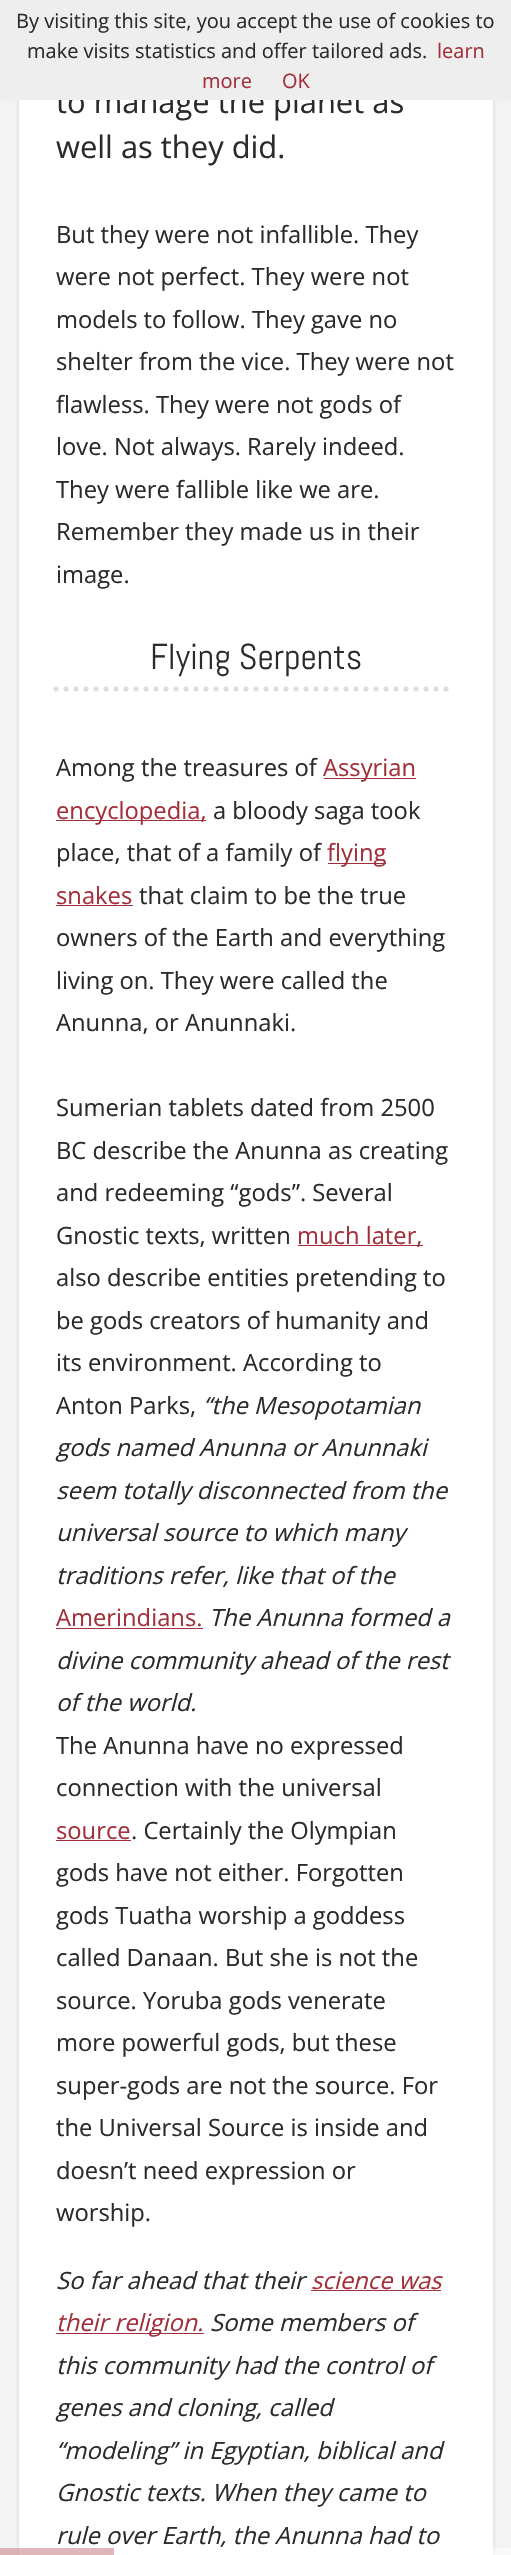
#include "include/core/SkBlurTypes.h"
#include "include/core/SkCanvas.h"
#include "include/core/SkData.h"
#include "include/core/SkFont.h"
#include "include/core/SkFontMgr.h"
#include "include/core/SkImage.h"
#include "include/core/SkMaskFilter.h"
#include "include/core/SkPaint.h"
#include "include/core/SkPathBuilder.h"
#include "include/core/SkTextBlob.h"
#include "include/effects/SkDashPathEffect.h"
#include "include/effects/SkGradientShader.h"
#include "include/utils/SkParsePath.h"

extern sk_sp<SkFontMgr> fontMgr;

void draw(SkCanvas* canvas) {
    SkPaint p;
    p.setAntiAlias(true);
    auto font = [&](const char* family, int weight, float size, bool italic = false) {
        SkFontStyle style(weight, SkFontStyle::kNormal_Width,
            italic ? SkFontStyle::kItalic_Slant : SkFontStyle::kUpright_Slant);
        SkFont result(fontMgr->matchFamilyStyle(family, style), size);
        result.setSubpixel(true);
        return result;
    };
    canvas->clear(0xFFF3F3F3);
    p.setColor(0x21000000);
    p.setMaskFilter(SkMaskFilter::MakeBlur(kNormal_SkBlurStyle, 2));
    canvas->drawRect(SkRect::MakeLTRB(19, -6, 493, 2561), p);
    p.setMaskFilter(nullptr);
    p.setColor(0xFFFFFFFF);
    canvas->drawRect(SkRect::MakeLTRB(19, 100, 493, 2555), p);
    auto font1 = font("Open Sans", 400, 30.9f);
    p.setColor(0xFF292B2C);
    canvas->drawString("to manage the planet as", 56, 113, font1, p);
    p.setColor(0xFFEEEEEE);
    canvas->drawRect(SkRect::MakeLTRB(0, 0, 511, 100), p);
    auto font2 = font("Open Sans", 400, 20);
    p.setColor(0xFF292B2C);
    canvas->drawString("By visiting this site, you accept the use of cookies to", 16, 28, font2, p);
    canvas->drawString("make visits statistics and offer tailored ads.", 27, 58, font2, p);
    p.setColor(0xFFA32F3A);
    {
        const struct { const char* s; float x, y; } items[] = {
            {"learn", 437, 58},
            {"more", 202, 88},
            {"OK", 282, 88},
        };
        for (auto [s, x, y] : items) {
            canvas->drawString(s, x, y, font2, p);
        }
    }
    p.setColor(0xFF292B2C);
    canvas->drawString("well as they did.", 56, 158, font1, p);
    auto font3 = font("Open Sans", 400, 23.75f);
    {
        const struct { const char* s; float x, y; } items[] = {
            {"But they were not infallible. They", 56, 243},
            {"were not perfect. They were not", 56, 285},
            {"models to follow. They gave no", 56, 328},
            {"shelter from the vice. They were not", 56, 370},
            {"flawless. They were not gods of", 56, 413},
            {"love. Not always. Rarely indeed.", 56, 455},
            {"They were fallible like we are.", 56, 498},
            {"Remember they made us in their", 56, 540},
            {"image.", 56, 583},
        };
        for (auto [s, x, y] : items) {
            canvas->drawString(s, x, y, font3, p);
        }
    }
    p.setStyle(SkPaint::kStroke_Style);
    p.setStrokeWidth(5);
    p.setStrokeCap(SkPaint::kRound_Cap);
    p.setColor(0xFFDDDDDD);
    p.setPathEffect(SkDashPathEffect::Make({{0, 10}}, 0));
    canvas->drawPath(SkPathBuilder().moveTo(56, 689).lineTo(455, 689).detach(), p);
    p.setPathEffect(nullptr);
    auto font4 = font("Abel", 400, 36);
    p.setStyle(SkPaint::kFill_Style);
    p.setColor(0xFF292B2C);
    canvas->drawString("Flying Serpents", 150, 669, font4, p);
    canvas->drawString("Among the treasures of", 56, 776, font3, p);
    p.setColor(0xFFA32F3A);
    canvas->drawRect(SkRect::MakeLTRB(324, 778, 416, 779), p);
    canvas->drawString("Assyrian", 323, 776, font3, p);
    canvas->drawRect(SkRect::MakeLTRB(56, 820, 206, 821), p);
    canvas->drawString("encyclopedia,", 56, 819, font3, p);
    p.setColor(0xFF292B2C);
    canvas->drawString("a bloody saga took", 213, 819, font3, p);
    canvas->drawString("place, that of a family of", 56, 861, font3, p);
    p.setColor(0xFFA32F3A);
    canvas->drawRect(SkRect::MakeLTRB(328, 863, 386, 864), p);
    canvas->drawString("flying", 327, 861, font3, p);
    canvas->drawString("snakes", 56, 904, font3, p);
    canvas->drawRect(SkRect::MakeLTRB(56, 905, 133, 906), p);
    p.setColor(0xFF292B2C);
    {
        const struct { const char* s; float x, y; } items[] = {
            {"that claim to be the true", 139, 904},
            {"owners of the Earth and everything", 56, 946},
            {"living on. They were called the", 56, 989},
            {"Anunna, or Anunnaki.", 56, 1031},
            {"Sumerian tablets dated from 2500", 56, 1116},
            {"BC describe the Anunna as creating", 56, 1159},
            {"and redeeming “gods”. Several", 56, 1201},
            {"Gnostic texts, written", 56, 1244},
        };
        for (auto [s, x, y] : items) {
            canvas->drawString(s, x, y, font3, p);
        }
    }
    p.setColor(0xFFA32F3A);
    canvas->drawRect(SkRect::MakeLTRB(298, 1245, 423, 1246), p);
    canvas->drawString("much later,", 297, 1244, font3, p);
    p.setColor(0xFF292B2C);
    {
        const struct { const char* s; float x, y; } items[] = {
            {"also describe entities pretending to", 56, 1286},
            {"be gods creators of humanity and", 56, 1329},
            {"its environment. According to", 56, 1371},
            {"Anton Parks,", 56, 1414},
        };
        for (auto [s, x, y] : items) {
            canvas->drawString(s, x, y, font3, p);
        }
    }
    auto font5 = font("Open Sans", 400, 23.75f, true);
    {
        const struct { const char* s; float x, y; } items[] = {
            {"“the Mesopotamian", 203, 1414},
            {"gods named Anunna or Anunnaki", 56, 1456},
            {"seem totally disconnected from the", 56, 1499},
            {"universal source to which many", 56, 1541},
            {"traditions refer, like that of the", 56, 1584},
        };
        for (auto [s, x, y] : items) {
            canvas->drawString(s, x, y, font5, p);
        }
    }
    p.setColor(0xFFA32F3A);
    canvas->drawString("Amerindians.", 56, 1626, font3, p);
    canvas->drawRect(SkRect::MakeLTRB(56, 1628, 203, 1629), p);
    p.setColor(0xFF292B2C);
    {
        const struct { const char* s; float x, y; } items[] = {
            {"The Anunna formed a", 209, 1626},
            {"divine community ahead of the rest", 56, 1669},
            {"of the world.", 56, 1711},
        };
        for (auto [s, x, y] : items) {
            canvas->drawString(s, x, y, font5, p);
        }
    }
    canvas->drawString("The Anunna have no expressed", 56, 1754, font3, p);
    canvas->drawString("connection with the universal", 56, 1796, font3, p);
    p.setColor(0xFFA32F3A);
    canvas->drawString("source", 56, 1839, font3, p);
    canvas->drawRect(SkRect::MakeLTRB(56, 1840, 131, 1841), p);
    p.setColor(0xFF292B2C);
    {
        const struct { const char* s; float x, y; } items[] = {
            {". Certainly the Olympian", 131, 1839},
            {"gods have not either. Forgotten", 56, 1881},
            {"gods Tuatha worship a goddess", 56, 1924},
            {"called Danaan. But she is not the", 56, 1966},
            {"source. Yoruba gods venerate", 56, 2009},
            {"more powerful gods, but these", 56, 2051},
            {"super-gods are not the source. For", 56, 2094},
            {"the Universal Source is inside and", 56, 2136},
            {"doesn’t need expression or", 56, 2179},
            {"worship.", 56, 2221},
        };
        for (auto [s, x, y] : items) {
            canvas->drawString(s, x, y, font3, p);
        }
    }
    canvas->drawString("So far ahead that their", 56, 2289, font5, p);
    p.setColor(0xFFA32F3A);
    canvas->drawString("science was", 311, 2289, font5, p);
    canvas->drawRect(SkRect::MakeLTRB(311, 2290, 441, 2291), p);
    canvas->drawRect(SkRect::MakeLTRB(56, 2333, 204, 2334), p);
    canvas->drawString("their religion.", 56, 2331, font5, p);
    p.setColor(0xFF292B2C);
    {
        const struct { const char* s; float x, y; } items[] = {
            {"Some members of", 210, 2331},
            {"this community had the control of", 56, 2374},
            {"genes and cloning, called", 56, 2416},
            {"“modeling” in Egyptian, biblical and", 56, 2459},
            {"Gnostic texts. When they came to", 56, 2501},
            {"rule over Earth, the Anunna had to", 56, 2544},
        };
        for (auto [s, x, y] : items) {
            canvas->drawString(s, x, y, font5, p);
        }
    }
    p.setColor(0x80FFFFFF);
    canvas->drawRect(SkRect::MakeLTRB(0, 2548, 511, 2555), p);
    p.setColor(0x59A32F3A);
    canvas->drawRect(SkRect::MakeLTRB(0, 2548, 114, 2555), p);
}
